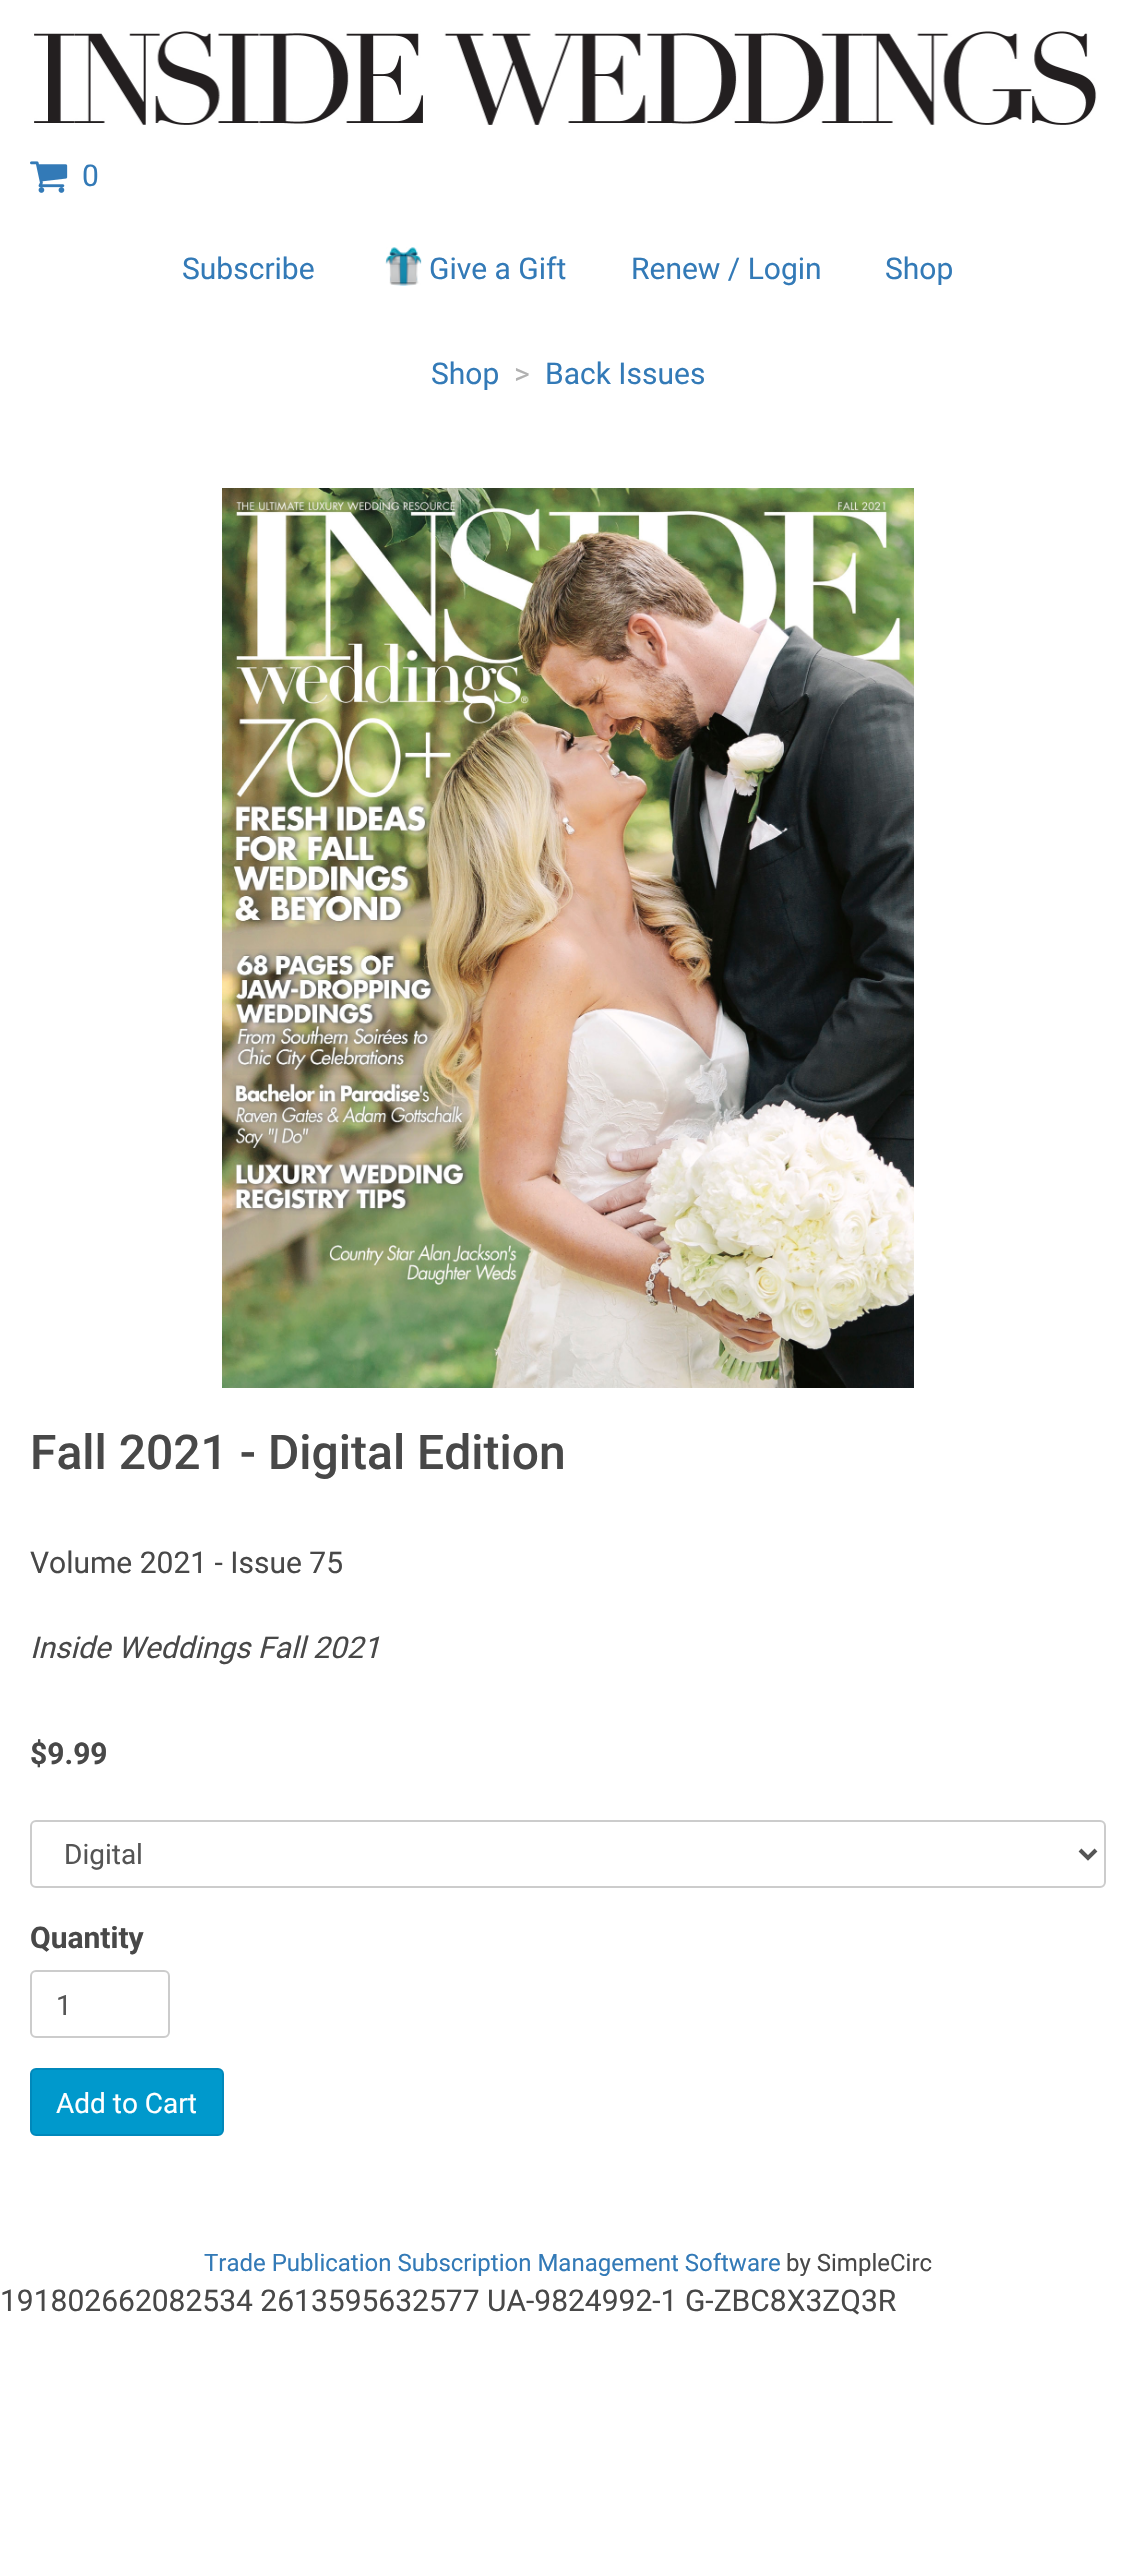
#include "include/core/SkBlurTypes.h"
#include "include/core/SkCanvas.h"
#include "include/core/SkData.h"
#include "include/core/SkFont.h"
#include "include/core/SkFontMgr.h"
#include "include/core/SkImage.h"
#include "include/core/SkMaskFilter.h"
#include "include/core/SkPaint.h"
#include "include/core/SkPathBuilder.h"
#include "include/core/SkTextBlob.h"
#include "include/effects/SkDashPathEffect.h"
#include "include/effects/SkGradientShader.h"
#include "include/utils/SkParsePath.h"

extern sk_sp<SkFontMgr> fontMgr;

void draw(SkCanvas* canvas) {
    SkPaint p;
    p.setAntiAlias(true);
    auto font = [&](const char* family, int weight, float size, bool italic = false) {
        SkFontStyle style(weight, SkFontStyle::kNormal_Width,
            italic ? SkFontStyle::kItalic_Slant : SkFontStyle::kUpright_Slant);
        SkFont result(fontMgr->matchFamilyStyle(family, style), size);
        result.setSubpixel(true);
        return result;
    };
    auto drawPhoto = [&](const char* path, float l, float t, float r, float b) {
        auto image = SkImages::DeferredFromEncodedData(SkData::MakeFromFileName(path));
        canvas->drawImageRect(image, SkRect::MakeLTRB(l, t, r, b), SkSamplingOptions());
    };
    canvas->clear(0xFFFFFFFF);
    drawPhoto("media/1.png", 34, 31, 1097, 125);
    drawPhoto("media/2.png", 30, 161, 68, 193);
    auto font1 = font("Roboto", 400, 30);
    p.setColor(0xFF337AB7);
    canvas->drawString("0", 82, 186, font1, p);
    canvas->drawString("Subscribe", 182, 279, font1, p);
    drawPhoto("media/3.png", 385, 247, 422, 286);
    {
        const struct { const char* s; float x, y; } items[] = {
            {"Give a Gift", 429, 279},
            {"Renew / Login", 631, 279},
            {"Shop", 885, 279},
            {"Shop", 431, 384},
        };
        for (auto [s, x, y] : items) {
            canvas->drawString(s, x, y, font1, p);
        }
    }
    p.setColor(0xFFB1B1B1);
    canvas->drawString(">", 514, 384, font1, p);
    p.setColor(0xFF337AB7);
    canvas->drawString("Back Issues", 545, 384, font1, p);
    drawPhoto("media/4.png", 222, 488, 914, 1388);
    auto font2 = font("Roboto", 500, 48);
    p.setColor(0xFF484848);
    canvas->drawString("Fall 2021 - Digital Edition", 30, 1469, font2, p);
    canvas->drawString("Volume 2021 - Issue 75", 30, 1573, font1, p);
    auto font3 = font("Roboto", 400, 30, true);
    canvas->drawString("Inside Weddings Fall 2021", 30, 1658, font3, p);
    auto font4 = font("Roboto", 700, 30);
    canvas->drawString("$9.99", 30, 1764, font4, p);
    p.setStyle(SkPaint::kStroke_Style);
    p.setStrokeWidth(2);
    p.setColor(0xFFCCCCCC);
    canvas->drawRoundRect(SkRect::MakeLTRB(31, 1821, 1105, 1887), 5, 5, p);
    p.setStrokeWidth(4);
    p.setColor(0xFF555555);
    canvas->drawPath(SkPathBuilder().moveTo(1080, 1850).lineTo(1088, 1858).lineTo(1096, 1850).detach(), p);
    auto font5 = font("Roboto", 400, 28);
    p.setStyle(SkPaint::kFill_Style);
    canvas->drawString("Digital", 64, 1864, font5, p);
    p.setColor(0xFF484848);
    canvas->drawString("Quantity", 30, 1948, font4, p);
    p.setStyle(SkPaint::kStroke_Style);
    p.setStrokeWidth(2);
    p.setColor(0xFFCCCCCC);
    canvas->drawRoundRect(SkRect::MakeLTRB(31, 1971, 169, 2037), 5, 5, p);
    p.setStyle(SkPaint::kFill_Style);
    p.setColor(0xFF555555);
    canvas->drawString("1", 56, 2015, font5, p);
    p.setColor(0xFF0099CC);
    canvas->drawRoundRect(SkRect::MakeLTRB(31, 2069, 223, 2135), 5, 5, p);
    p.setStyle(SkPaint::kStroke_Style);
    p.setColor(0xFF0088BB);
    canvas->drawRoundRect(SkRect::MakeLTRB(31, 2069, 223, 2135), 5, 5, p);
    p.setStyle(SkPaint::kFill_Style);
    p.setColor(0xFFFFFFFF);
    canvas->drawString("Add to Cart", 56, 2113, font5, p);
    auto font6 = font("Roboto", 400, 24);
    p.setColor(0xFF337AB7);
    canvas->drawString("Trade Publication Subscription Management Software", 204, 2271, font6, p);
    p.setColor(0xFF484848);
    canvas->drawString("by SimpleCirc", 786, 2271, font6, p);
    canvas->drawString("191802662082534 2613595632577 UA-9824992-1 G-ZBC8X3ZQ3R", 0, 2311, font1, p);
}
